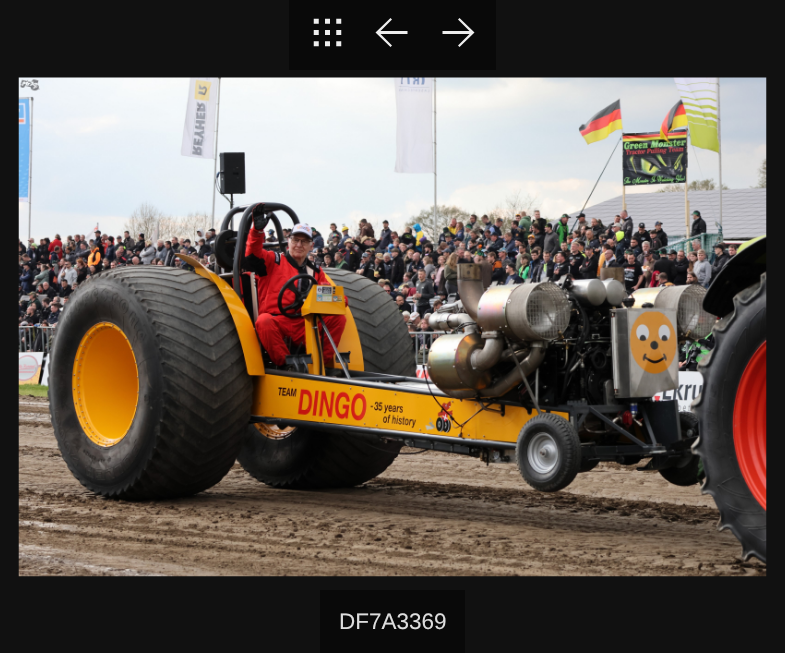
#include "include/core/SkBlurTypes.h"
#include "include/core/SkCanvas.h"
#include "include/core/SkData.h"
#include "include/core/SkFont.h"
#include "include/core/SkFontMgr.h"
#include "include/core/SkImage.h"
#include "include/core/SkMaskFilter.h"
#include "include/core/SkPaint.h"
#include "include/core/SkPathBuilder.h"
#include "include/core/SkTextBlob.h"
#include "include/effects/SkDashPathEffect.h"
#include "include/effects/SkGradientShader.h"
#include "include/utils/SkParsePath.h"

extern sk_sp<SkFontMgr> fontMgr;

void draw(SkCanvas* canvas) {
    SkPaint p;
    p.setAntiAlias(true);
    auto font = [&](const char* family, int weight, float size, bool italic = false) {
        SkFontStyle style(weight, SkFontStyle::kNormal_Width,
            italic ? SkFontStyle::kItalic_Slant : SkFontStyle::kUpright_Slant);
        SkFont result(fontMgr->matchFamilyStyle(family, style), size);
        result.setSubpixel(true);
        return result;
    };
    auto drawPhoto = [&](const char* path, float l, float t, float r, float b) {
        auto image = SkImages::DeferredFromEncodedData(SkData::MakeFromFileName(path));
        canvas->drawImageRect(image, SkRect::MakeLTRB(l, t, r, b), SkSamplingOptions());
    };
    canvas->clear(0xFF111111);
    p.setColor(0xFF090909);
    canvas->drawRect(SkRect::MakeLTRB(289, 0, 496, 70), p);
    drawPhoto("media/1.png", 313, 18, 342, 47);
    p.setColor(0xFFEEEEEE);
    canvas->drawPath(SkPathBuilder().moveTo(407.5f, 31).lineTo(380.5f, 31).lineTo(392, 19.5f).lineTo(390.5f, 18).lineTo(375.5f, 32.5f).lineTo(390.5f, 47).lineTo(392, 45.5f).lineTo(380.5f, 34).lineTo(407.5f, 34).close().detach(), p);
    canvas->drawPath(SkPathBuilder().moveTo(442.5f, 31).lineTo(469.5f, 31).lineTo(458, 19.5f).lineTo(459.5f, 18).lineTo(474.5f, 32.5f).lineTo(459.5f, 47).lineTo(458, 45.5f).lineTo(469.5f, 34).lineTo(442.5f, 34).close().detach(), p);
    drawPhoto("media/2.png", 18, 77, 767, 577);
    p.setColor(0xFF090909);
    canvas->drawRect(SkRect::MakeLTRB(320, 590, 465, 653), p);
    auto font1 = font("Liberation Sans", 400, 22.5f);
    p.setColor(0xFFDDDDDD);
    canvas->drawString("DF7A3369", 339, 629, font1, p);
}
